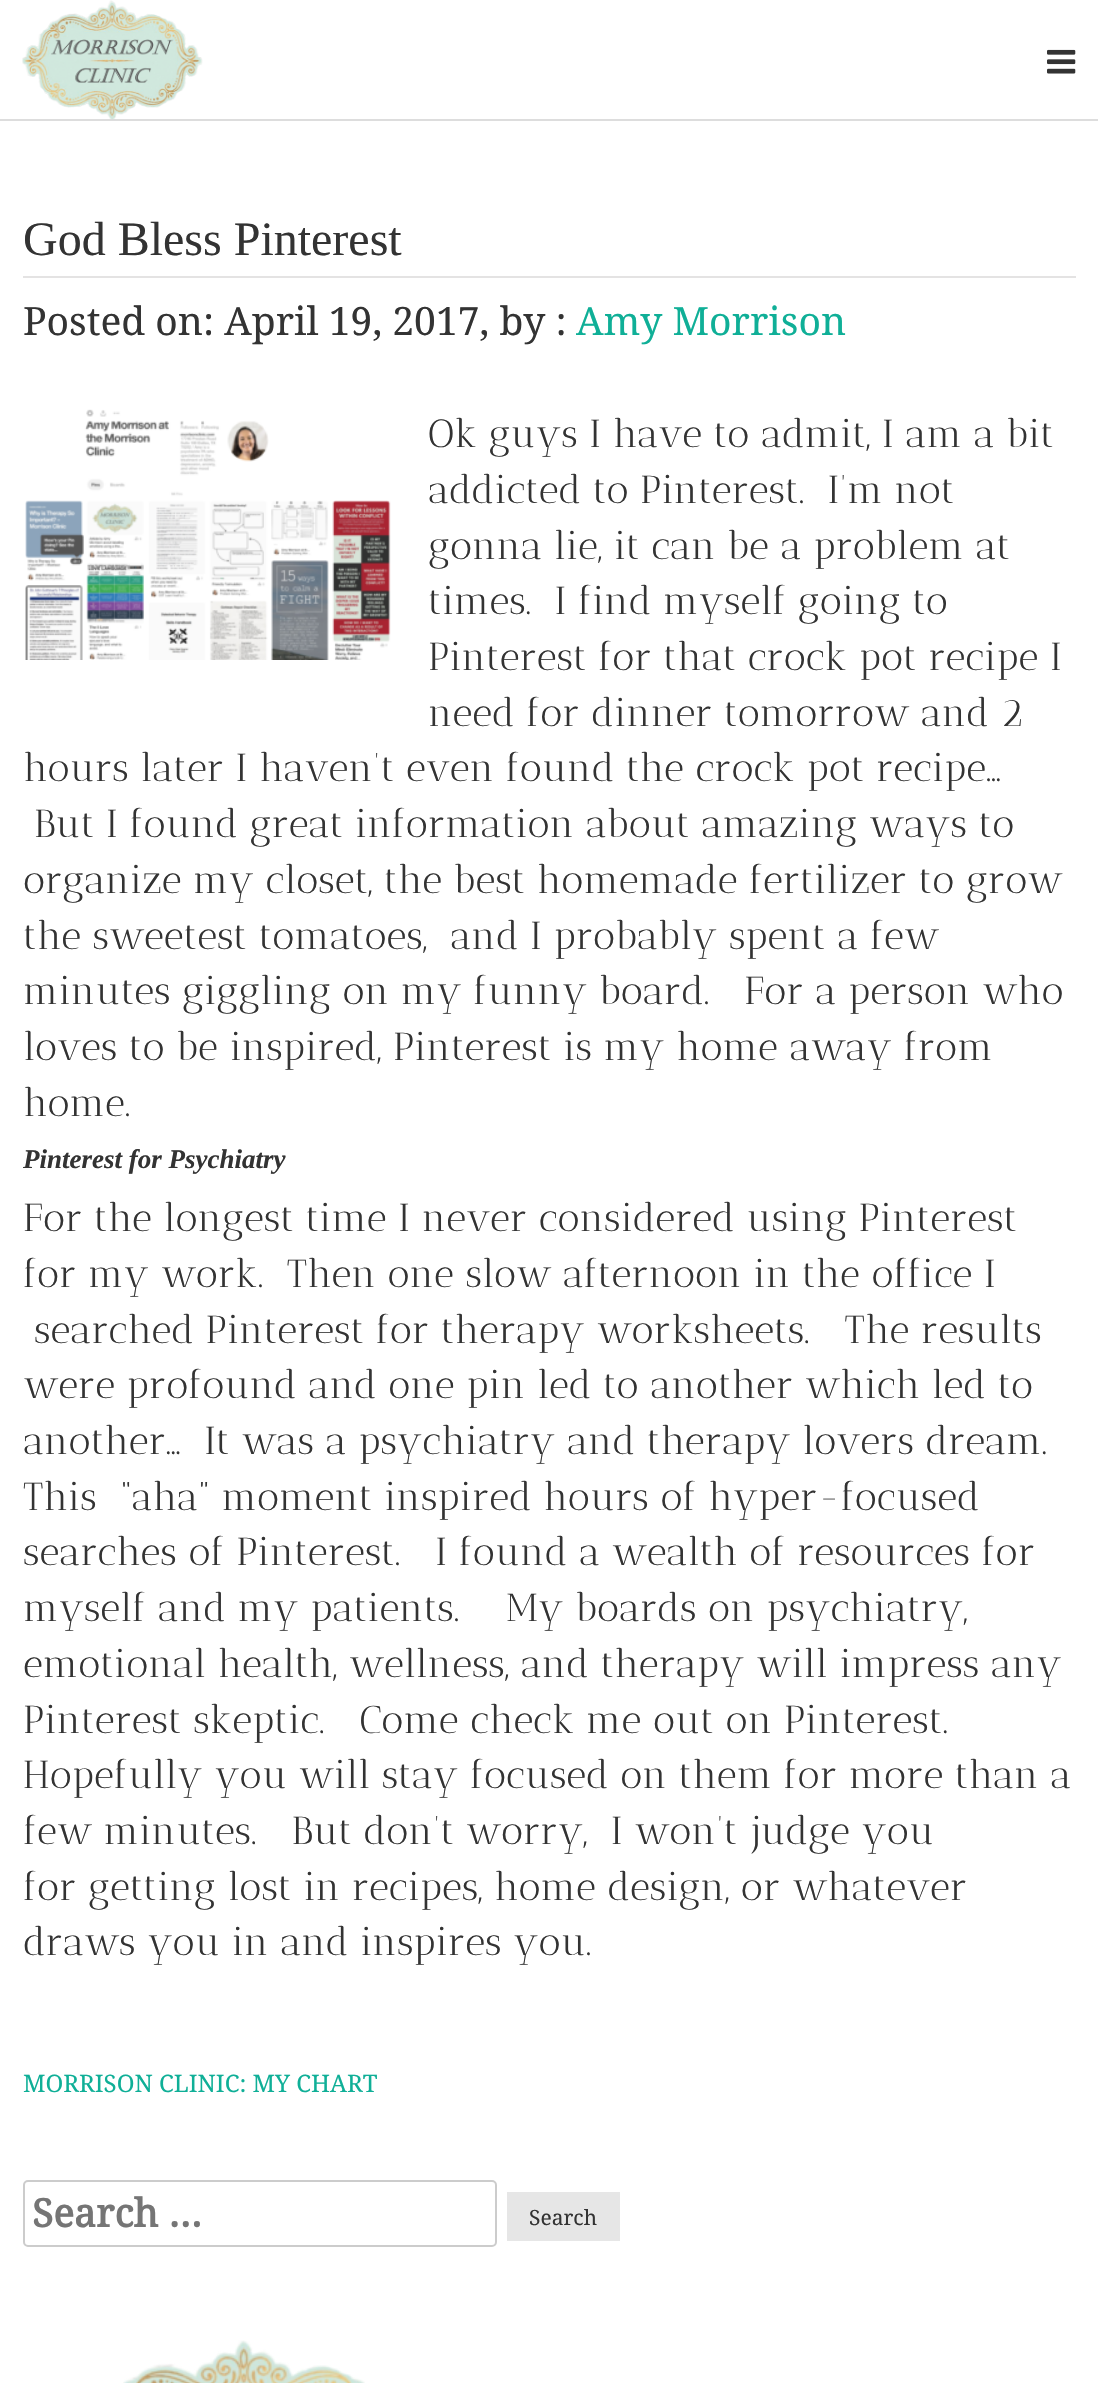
#include "include/core/SkBlurTypes.h"
#include "include/core/SkCanvas.h"
#include "include/core/SkData.h"
#include "include/core/SkFont.h"
#include "include/core/SkFontMgr.h"
#include "include/core/SkImage.h"
#include "include/core/SkMaskFilter.h"
#include "include/core/SkPaint.h"
#include "include/core/SkPathBuilder.h"
#include "include/core/SkTextBlob.h"
#include "include/effects/SkDashPathEffect.h"
#include "include/effects/SkGradientShader.h"
#include "include/utils/SkParsePath.h"

extern sk_sp<SkFontMgr> fontMgr;

void draw(SkCanvas* canvas) {
    SkPaint p;
    p.setAntiAlias(true);
    auto font = [&](const char* family, int weight, float size, bool italic = false) {
        SkFontStyle style(weight, SkFontStyle::kNormal_Width,
            italic ? SkFontStyle::kItalic_Slant : SkFontStyle::kUpright_Slant);
        SkFont result(fontMgr->matchFamilyStyle(family, style), size);
        result.setSubpixel(true);
        return result;
    };
    auto drawPhoto = [&](const char* path, float l, float t, float r, float b) {
        auto image = SkImages::DeferredFromEncodedData(SkData::MakeFromFileName(path));
        canvas->drawImageRect(image, SkRect::MakeLTRB(l, t, r, b), SkSamplingOptions());
    };
    canvas->clear(0xFFFFFFFF);
    p.setColor(0xFFDDDDDD);
    canvas->drawRect(SkRect::MakeLTRB(0, 119, 1098, 121), p);
    drawPhoto("media/1.png", 22, 0, 203, 120);
    drawPhoto("media/2.png", 1047, 49, 1076, 74);
    p.setColor(0xFFE4E3E3);
    canvas->drawRect(SkRect::MakeLTRB(23, 276, 1076, 278), p);
    auto font1 = font("Liberation Serif", 400, 48);
    p.setColor(0xFF333333);
    canvas->drawString("God Bless Pinterest", 23, 255, font1, p);
    auto font2 = font("Noto Serif", 400, 39);
    canvas->drawString("Posted on: April 19, 2017, by :", 23, 335, font2, p);
    p.setColor(0xFF0FAF97);
    canvas->drawString("Amy Morrison", 576, 335, font2, p);
    drawPhoto("media/3.png", 25, 409, 391, 660);
    auto font3 = font("Antic Didone", 400, 39);
    p.setColor(0xFF333333);
    {
        const struct { const char* s; float x, y; } items[] = {
            {"Ok guys I have to admit, I am a bit", 428, 447},
            {"addicted to Pinterest.  I’m not", 428, 503},
            {"gonna lie, it can be a problem at", 428, 559},
            {"times.  I find myself going to", 428, 614},
            {"Pinterest for that crock pot recipe I", 428, 670},
            {"need for dinner tomorrow and 2", 428, 726},
            {"hours later I haven’t even found the crock pot recipe…", 23, 781},
            {"But I found great information about amazing ways to", 34, 837},
            {"organize my closet, the best homemade fertilizer to grow", 23, 893},
            {"the sweetest tomatoes,  and I probably spent a few", 23, 949},
            {"minutes giggling on my funny board.   For a person who", 23, 1004},
            {"loves to be inspired, Pinterest is my home away from", 23, 1060},
            {"home.", 23, 1116},
        };
        for (auto [s, x, y] : items) {
            canvas->drawString(s, x, y, font3, p);
        }
    }
    auto font4 = font("Liberation Serif", 700, 27, true);
    canvas->drawString("Pinterest for Psychiatry", 23, 1168, font4, p);
    {
        const struct { const char* s; float x, y; } items[] = {
            {"For the longest time I never considered using Pinterest", 23, 1231},
            {"for my work.  Then one slow afternoon in the office I", 23, 1287},
            {"searched Pinterest for therapy worksheets.   The results", 34, 1343},
            {"were profound and one pin led to another which led to", 23, 1398},
            {"another…  It was a psychiatry and therapy lovers dream.", 23, 1454},
            {"This  “aha” moment inspired hours of hyper-focused", 23, 1510},
            {"searches of Pinterest.   I found a wealth of resources for", 23, 1565},
            {"myself and my patients.    My boards on psychiatry,", 23, 1621},
            {"emotional health, wellness, and therapy will impress any", 23, 1677},
            {"Pinterest skeptic.   Come check me out on Pinterest.", 23, 1733},
            {"Hopefully you will stay focused on them for more than a", 23, 1788},
            {"few minutes.   But don’t worry,  I won’t judge you", 23, 1844},
            {"for getting lost in recipes, home design, or whatever", 23, 1900},
            {"draws you in and inspires you.", 23, 1955},
        };
        for (auto [s, x, y] : items) {
            canvas->drawString(s, x, y, font3, p);
        }
    }
    auto font5 = font("Noto Serif", 400, 24);
    p.setColor(0xFF0FAF97);
    canvas->drawString("MORRISON CLINIC: MY CHART", 23, 2092, font5, p);
    p.setStyle(SkPaint::kStroke_Style);
    p.setStrokeWidth(2);
    p.setColor(0xFFCCCCCC);
    canvas->drawRoundRect(SkRect::MakeLTRB(24, 2181, 496, 2246), 4, 4, p);
    auto font6 = font("Noto Serif", 700, 39);
    p.setStyle(SkPaint::kFill_Style);
    p.setColor(0xFF757575);
    canvas->drawString("Search …", 32, 2227, font6, p);
    p.setColor(0xFFE6E6E6);
    canvas->drawRect(SkRect::MakeLTRB(507, 2192, 620, 2241), p);
    auto font7 = font("Noto Serif", 400, 21);
    p.setColor(0xFF333333);
    canvas->drawString("Search", 529, 2225, font7, p);
    drawPhoto("media/4.png", 123, 2340, 365, 2383);
}
